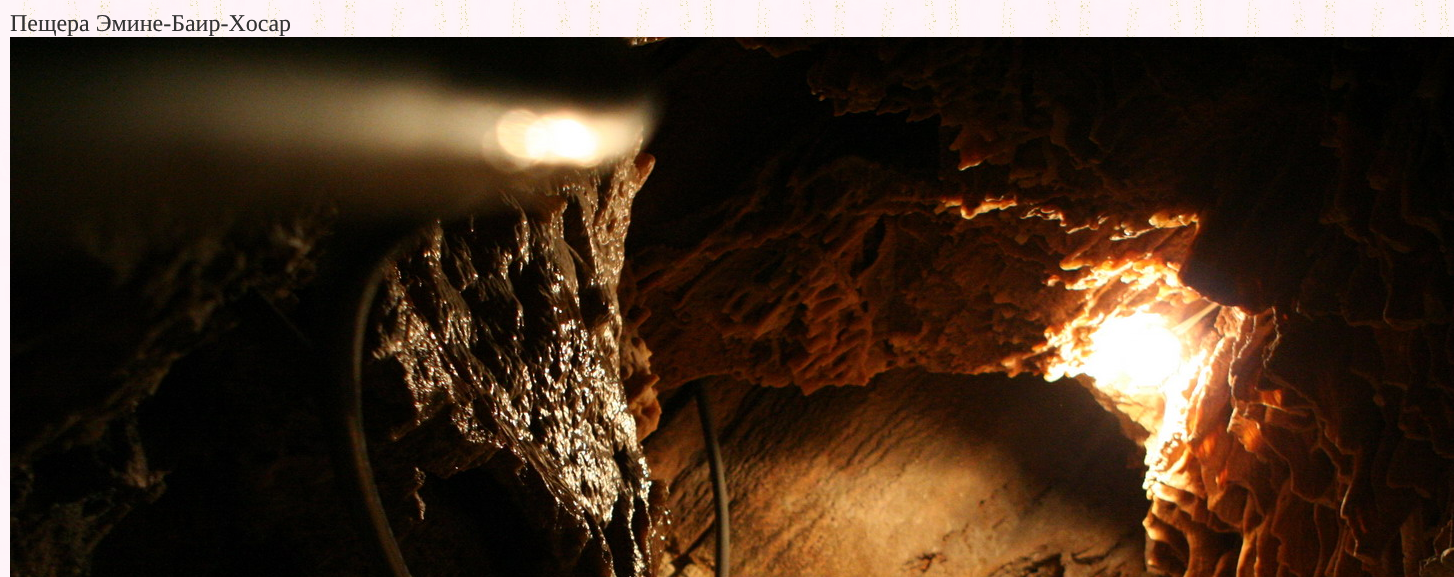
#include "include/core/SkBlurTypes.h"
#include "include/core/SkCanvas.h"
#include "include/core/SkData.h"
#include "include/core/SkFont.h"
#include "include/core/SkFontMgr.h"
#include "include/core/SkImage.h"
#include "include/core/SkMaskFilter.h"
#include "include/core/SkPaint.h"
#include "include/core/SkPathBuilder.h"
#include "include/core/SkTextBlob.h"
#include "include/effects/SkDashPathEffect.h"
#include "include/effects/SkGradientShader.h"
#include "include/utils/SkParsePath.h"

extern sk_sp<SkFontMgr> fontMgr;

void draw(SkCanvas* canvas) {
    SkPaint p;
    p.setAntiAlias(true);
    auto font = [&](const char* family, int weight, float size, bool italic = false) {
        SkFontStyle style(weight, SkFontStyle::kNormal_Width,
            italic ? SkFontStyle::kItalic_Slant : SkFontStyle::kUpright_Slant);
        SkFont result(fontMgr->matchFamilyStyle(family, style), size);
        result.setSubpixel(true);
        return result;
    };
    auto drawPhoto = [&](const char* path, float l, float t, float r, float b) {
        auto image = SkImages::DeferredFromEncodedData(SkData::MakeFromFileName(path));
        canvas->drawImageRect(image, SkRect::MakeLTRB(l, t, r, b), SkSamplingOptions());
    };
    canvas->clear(0xFFFFFFFF);
    drawPhoto("media/1.png", 0, 0, 1454, 577);
    auto font1 = font("Liberation Serif", 400, 24);
    p.setColor(0xFF333333);
    canvas->drawString("Пещера Эмине-Баир-Хосар", 10, 31, font1, p);
    drawPhoto("media/2.png", 10, 37, 1454, 577);
}
